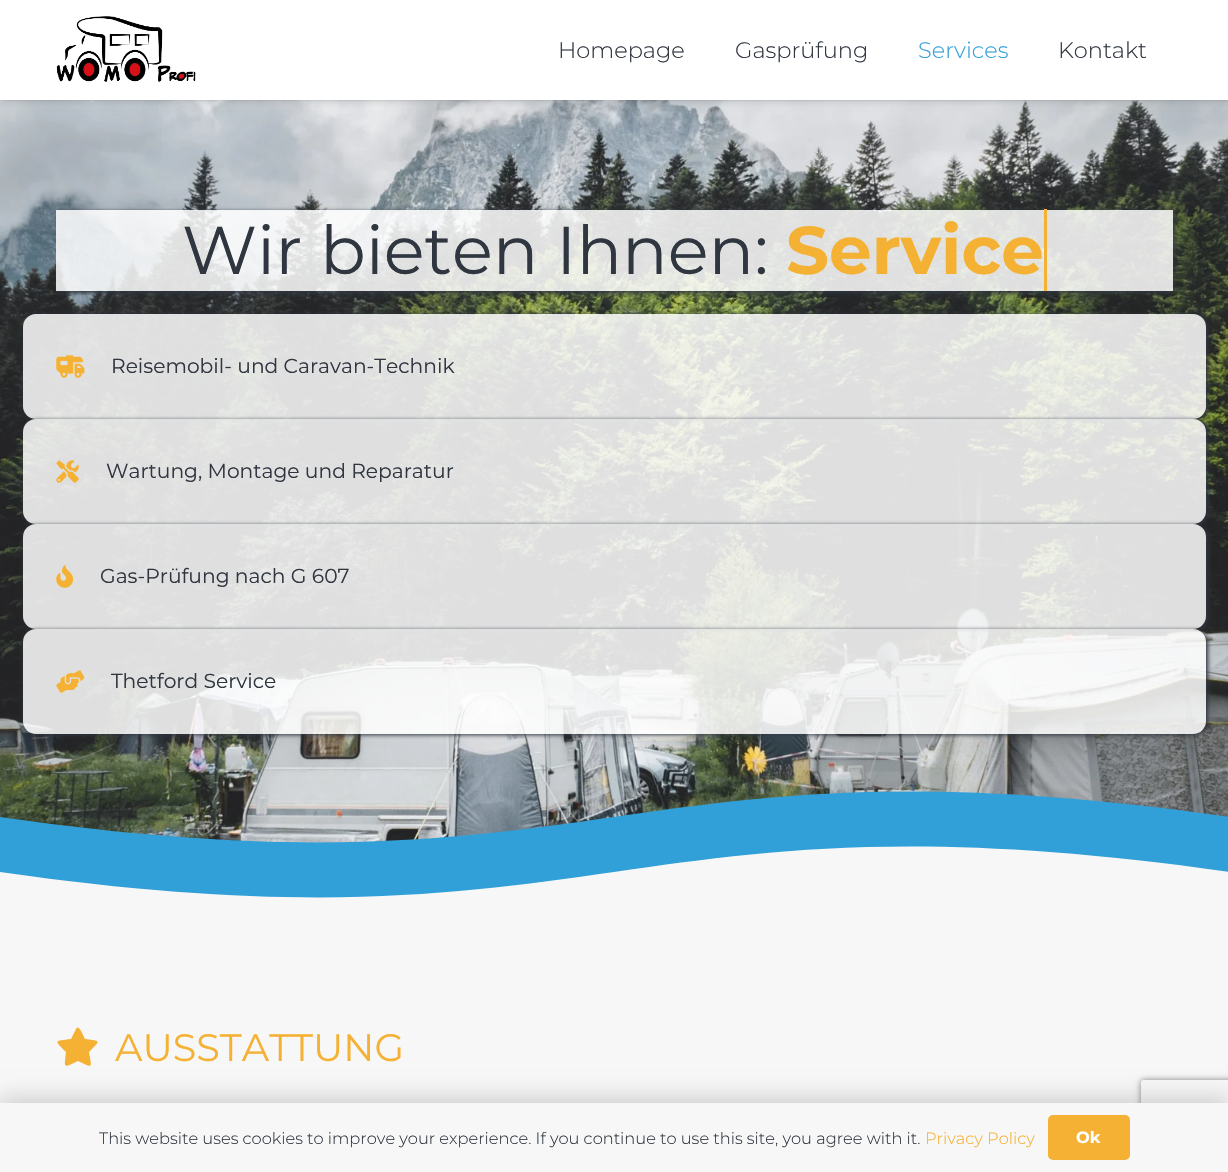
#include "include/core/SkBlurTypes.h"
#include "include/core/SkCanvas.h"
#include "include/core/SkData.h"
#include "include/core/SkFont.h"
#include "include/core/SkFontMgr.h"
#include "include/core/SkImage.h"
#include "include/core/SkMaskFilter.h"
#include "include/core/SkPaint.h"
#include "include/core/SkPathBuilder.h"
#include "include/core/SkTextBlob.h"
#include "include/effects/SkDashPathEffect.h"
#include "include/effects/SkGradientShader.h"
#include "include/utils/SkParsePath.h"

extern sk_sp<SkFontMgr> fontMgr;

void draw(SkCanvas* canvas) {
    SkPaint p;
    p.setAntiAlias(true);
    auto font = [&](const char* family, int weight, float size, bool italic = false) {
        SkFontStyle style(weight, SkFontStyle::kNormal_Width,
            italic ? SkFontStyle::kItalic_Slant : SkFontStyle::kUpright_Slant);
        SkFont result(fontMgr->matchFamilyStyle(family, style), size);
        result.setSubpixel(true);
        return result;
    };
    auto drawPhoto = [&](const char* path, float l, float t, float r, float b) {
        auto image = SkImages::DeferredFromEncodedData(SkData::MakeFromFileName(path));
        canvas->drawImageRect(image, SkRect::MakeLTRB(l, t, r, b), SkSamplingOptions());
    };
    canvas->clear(0xFFF7F7F7);
    drawPhoto("media/2.png", 0, 100, 1228, 843);
    p.setColor(0x0D000000);
    p.setMaskFilter(SkMaskFilter::MakeBlur(kNormal_SkBlurStyle, 0.5f));
    canvas->drawRect(SkRect::MakeLTRB(1, 4, 1228, 101), p);
    p.setMaskFilter(nullptr);
    p.setColor(0x1A000000);
    p.setMaskFilter(SkMaskFilter::MakeBlur(kNormal_SkBlurStyle, 3));
    canvas->drawRect(SkRect::MakeLTRB(1, 5, 1228, 103), p);
    p.setMaskFilter(nullptr);
    p.setColor(0xFFFFFFFF);
    canvas->drawRect(SkRect::MakeLTRB(0, 0, 1228, 100), p);
    drawPhoto("media/1.png", 56, 16, 196, 82);
    auto font1 = font("Montserrat", 300, 22.5f);
    p.setColor(0xFF303640);
    canvas->drawString("Homepage", 558, 58, font1, p);
    canvas->drawString("Gasprüfung", 735, 58, font1, p);
    p.setColor(0xFF33A1D9);
    canvas->drawString("Services", 918, 58, font1, p);
    p.setColor(0xFF303640);
    canvas->drawString("Kontakt", 1058, 58, font1, p);
    canvas->save();
    canvas->clipPath(SkPathBuilder(SkPathFillType::kEvenOdd).moveTo(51, 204).lineTo(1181, 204).lineTo(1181, 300).lineTo(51, 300).close().moveTo(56, 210).lineTo(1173, 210).lineTo(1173, 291).lineTo(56, 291).close().detach(), true);
    p.setMaskFilter(SkMaskFilter::MakeBlur(kNormal_SkBlurStyle, 2));
    canvas->drawRect(SkRect::MakeLTRB(58, 211, 1174, 293), p);
    p.setMaskFilter(nullptr);
    canvas->restore();
    p.setColor(0xD9FFFFFF);
    canvas->drawRect(SkRect::MakeLTRB(56, 210, 1173, 291), p);
    auto font2 = font("Montserrat", 400, 67.5f);
    p.setColor(0xFF303640);
    canvas->drawString("Wir bieten Ihnen:", 182, 274, font2, p);
    auto font3 = font("Montserrat", 700, 67.5f);
    p.setColor(0xFFF5B133);
    canvas->drawString("Service", 786, 274, font3, p);
    canvas->drawRect(SkRect::MakeLTRB(1044, 209, 1047, 291), p);
    canvas->save();
    canvas->clipPath(SkPathBuilder(SkPathFillType::kEvenOdd).moveTo(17, 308).lineTo(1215, 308).lineTo(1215, 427).lineTo(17, 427).close().moveTo(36, 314).lineTo(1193, 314).cubicTo(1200, 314, 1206, 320, 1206, 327).lineTo(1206, 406).cubicTo(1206, 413, 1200, 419, 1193, 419).lineTo(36, 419).cubicTo(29, 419, 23, 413, 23, 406).lineTo(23, 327).cubicTo(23, 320, 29, 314, 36, 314).close().detach(), true);
    p.setColor(0xFF303640);
    p.setMaskFilter(SkMaskFilter::MakeBlur(kNormal_SkBlurStyle, 2));
    canvas->drawRoundRect(SkRect::MakeLTRB(24, 315, 1208, 420), 13, 13, p);
    p.setMaskFilter(nullptr);
    canvas->restore();
    p.setColor(0xD9FFFFFF);
    canvas->drawRoundRect(SkRect::MakeLTRB(23, 314, 1206, 419), 13, 13, p);
    drawPhoto("media/3.png", 56, 355, 85, 378);
    auto font4 = font("Montserrat", 400, 20.25f);
    p.setColor(0xFF303640);
    canvas->drawString("Reisemobil- und Caravan-Technik", 111, 373, font4, p);
    canvas->save();
    canvas->clipPath(SkPathBuilder(SkPathFillType::kEvenOdd).moveTo(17, 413).lineTo(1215, 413).lineTo(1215, 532).lineTo(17, 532).close().moveTo(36, 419).lineTo(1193, 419).cubicTo(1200, 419, 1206, 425, 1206, 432).lineTo(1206, 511).cubicTo(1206, 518, 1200, 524, 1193, 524).lineTo(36, 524).cubicTo(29, 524, 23, 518, 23, 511).lineTo(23, 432).cubicTo(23, 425, 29, 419, 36, 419).close().detach(), true);
    p.setMaskFilter(SkMaskFilter::MakeBlur(kNormal_SkBlurStyle, 2));
    canvas->drawRoundRect(SkRect::MakeLTRB(24, 420, 1208, 525), 13, 13, p);
    p.setMaskFilter(nullptr);
    canvas->restore();
    p.setColor(0xD9FFFFFF);
    canvas->drawRoundRect(SkRect::MakeLTRB(23, 419, 1206, 524), 13, 13, p);
    drawPhoto("media/4.png", 56, 460, 79, 483);
    p.setColor(0xFF303640);
    canvas->drawString("Wartung, Montage und Reparatur", 106, 478, font4, p);
    canvas->save();
    canvas->clipPath(SkPathBuilder(SkPathFillType::kEvenOdd).moveTo(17, 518).lineTo(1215, 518).lineTo(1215, 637).lineTo(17, 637).close().moveTo(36, 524).lineTo(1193, 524).cubicTo(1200, 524, 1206, 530, 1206, 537).lineTo(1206, 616).cubicTo(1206, 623, 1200, 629, 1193, 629).lineTo(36, 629).cubicTo(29, 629, 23, 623, 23, 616).lineTo(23, 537).cubicTo(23, 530, 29, 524, 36, 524).close().detach(), true);
    p.setMaskFilter(SkMaskFilter::MakeBlur(kNormal_SkBlurStyle, 2));
    canvas->drawRoundRect(SkRect::MakeLTRB(24, 525, 1208, 630), 13, 13, p);
    p.setMaskFilter(nullptr);
    canvas->restore();
    p.setColor(0xD9FFFFFF);
    canvas->drawRoundRect(SkRect::MakeLTRB(23, 524, 1206, 629), 13, 13, p);
    drawPhoto("media/5.png", 56, 565, 74, 588);
    p.setColor(0xFF303640);
    canvas->drawString("Gas-Prüfung nach G 607", 100, 583, font4, p);
    canvas->save();
    canvas->clipPath(SkPathBuilder(SkPathFillType::kEvenOdd).moveTo(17, 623).lineTo(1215, 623).lineTo(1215, 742).lineTo(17, 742).close().moveTo(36, 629).lineTo(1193, 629).cubicTo(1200, 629, 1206, 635, 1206, 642).lineTo(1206, 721).cubicTo(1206, 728, 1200, 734, 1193, 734).lineTo(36, 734).cubicTo(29, 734, 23, 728, 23, 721).lineTo(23, 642).cubicTo(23, 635, 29, 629, 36, 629).close().detach(), true);
    p.setMaskFilter(SkMaskFilter::MakeBlur(kNormal_SkBlurStyle, 2));
    canvas->drawRoundRect(SkRect::MakeLTRB(24, 630, 1208, 735), 13, 13, p);
    p.setMaskFilter(nullptr);
    canvas->restore();
    p.setColor(0xD9FFFFFF);
    canvas->drawRoundRect(SkRect::MakeLTRB(23, 629, 1206, 734), 13, 13, p);
    drawPhoto("media/6.png", 56, 670, 85, 693);
    p.setColor(0xFF303640);
    canvas->drawString("Thetford Service", 111, 688, font4, p);
    p.setColor(0xFF32A0D8);
    canvas->drawPath(SkPathBuilder().moveTo(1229, 817).cubicTo(614, 729, 614, 905, 0, 817).lineTo(0, 846).lineTo(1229, 846).close().detach(), p);
    canvas->save();
    canvas->clipRect(SkRect::MakeLTRB(0, 844, 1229, 903));
    canvas->drawPath(SkPathBuilder().moveTo(0, 872).cubicTo(614, 960, 614, 784, 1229, 872).lineTo(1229, 843).lineTo(0, 843).close().detach(), p);
    canvas->restore();
    p.setColor(0xFFF5B133);
    canvas->drawPath(SkPathBuilder().moveTo(76, 1029).cubicTo(79, 1023, 84, 1038, 85, 1039).cubicTo(101, 1041, 101, 1040, 89, 1052).cubicTo(92, 1069, 93, 1068, 78, 1061).cubicTo(63, 1068, 64, 1069, 66, 1052).cubicTo(54, 1040, 54, 1041, 71, 1039).close().detach(), p);
    auto font5 = font("Montserrat", 400, 38.25f);
    canvas->drawString("AUSSTATTUNG", 115, 1061, font5, p);
    p.setColor(0x26000000);
    p.setMaskFilter(SkMaskFilter::MakeBlur(kNormal_SkBlurStyle, 9.5f));
    canvas->drawRect(SkRect::MakeLTRB(0, 1096, 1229, 1166), p);
    p.setMaskFilter(nullptr);
    canvas->save();
    canvas->clipPath(SkPathBuilder(SkPathFillType::kEvenOdd).moveTo(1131, 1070).lineTo(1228, 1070).lineTo(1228, 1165).lineTo(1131, 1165).close().moveTo(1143.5f, 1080).lineTo(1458.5f, 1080).cubicTo(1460, 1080, 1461, 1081, 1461, 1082.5f).lineTo(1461, 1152.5f).cubicTo(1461, 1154, 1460, 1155, 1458.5f, 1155).lineTo(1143.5f, 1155).cubicTo(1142, 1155, 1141, 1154, 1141, 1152.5f).lineTo(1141, 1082.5f).cubicTo(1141, 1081, 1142, 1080, 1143.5f, 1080).close().detach(), true);
    p.setColor(0xFF808080);
    p.setMaskFilter(SkMaskFilter::MakeBlur(kNormal_SkBlurStyle, 3));
    canvas->drawRoundRect(SkRect::MakeLTRB(1141, 1080, 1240, 1155), 2.5f, 2.5f, p);
    p.setMaskFilter(nullptr);
    canvas->restore();
    p.setColor(0xFFF7F7F7);
    canvas->drawRect(SkRect::MakeLTRB(0, 1103, 1228, 1172), p);
    auto font6 = font("Montserrat", 300, 16.25f);
    p.setColor(0xFF303640);
    canvas->drawString("This website uses cookies to improve your experience. If you continue to use this site, you agree with it.", 99, 1144, font6, p);
    p.setColor(0xFFF5B133);
    canvas->drawString("Privacy Policy", 925, 1144, font6, p);
    canvas->drawRoundRect(SkRect::MakeLTRB(1048, 1115, 1130, 1160), 5, 5, p);
    auto font7 = font("Montserrat", 700, 16.25f);
    p.setColor(0xFFFFFFFF);
    canvas->drawString("Ok", 1076, 1143, font7, p);
}
